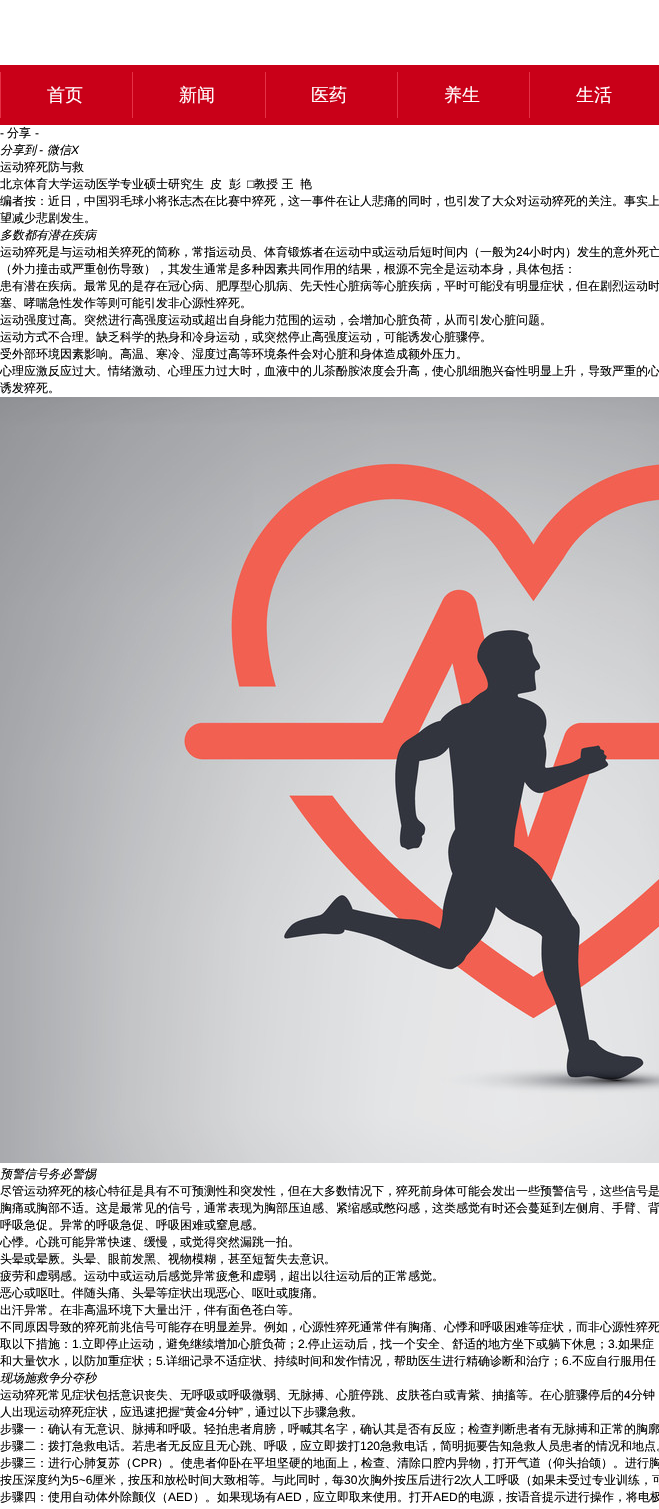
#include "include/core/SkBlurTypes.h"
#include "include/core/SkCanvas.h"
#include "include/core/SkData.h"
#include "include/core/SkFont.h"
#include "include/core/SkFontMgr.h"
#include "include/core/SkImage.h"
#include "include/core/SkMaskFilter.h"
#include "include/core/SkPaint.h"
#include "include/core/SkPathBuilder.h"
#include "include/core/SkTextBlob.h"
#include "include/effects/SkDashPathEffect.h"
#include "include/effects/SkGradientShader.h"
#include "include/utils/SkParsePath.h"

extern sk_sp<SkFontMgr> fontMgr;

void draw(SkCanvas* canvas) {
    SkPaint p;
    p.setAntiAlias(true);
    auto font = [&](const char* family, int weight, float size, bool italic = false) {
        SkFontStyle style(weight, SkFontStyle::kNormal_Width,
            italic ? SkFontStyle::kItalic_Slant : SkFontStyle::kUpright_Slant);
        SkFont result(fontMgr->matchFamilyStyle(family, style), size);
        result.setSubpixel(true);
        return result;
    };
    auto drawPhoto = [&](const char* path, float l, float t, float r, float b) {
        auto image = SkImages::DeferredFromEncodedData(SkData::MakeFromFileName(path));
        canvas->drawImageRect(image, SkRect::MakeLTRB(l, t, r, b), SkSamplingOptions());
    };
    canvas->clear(0xFFFFFFFF);
    p.setColor(0xFFC90018);
    canvas->drawRect(SkRect::MakeLTRB(0, 65, 659, 125), p);
    p.setColor(0xFFE53146);
    canvas->drawRect(SkRect::MakeLTRB(0, 72, 1, 118), p);
    auto font1 = font("WenQuanYi Zen Hei", 500, 18);
    p.setColor(0xFFFFFFFF);
    canvas->drawString("首页", 47, 101, font1, p);
    p.setColor(0xFFE53146);
    canvas->drawRect(SkRect::MakeLTRB(132, 72, 133, 118), p);
    p.setColor(0xFFFFFFFF);
    canvas->drawString("新闻", 179, 101, font1, p);
    p.setColor(0xFFE53146);
    canvas->drawRect(SkRect::MakeLTRB(265, 72, 266, 118), p);
    p.setColor(0xFFFFFFFF);
    canvas->drawString("医药", 311, 101, font1, p);
    p.setColor(0xFFE53146);
    canvas->drawRect(SkRect::MakeLTRB(397, 72, 398, 118), p);
    p.setColor(0xFFFFFFFF);
    canvas->drawString("养生", 444, 101, font1, p);
    p.setColor(0xFFE53146);
    canvas->drawRect(SkRect::MakeLTRB(529, 72, 530, 118), p);
    p.setColor(0xFFFFFFFF);
    canvas->drawString("生活", 576, 101, font1, p);
    auto font2 = font("Liberation Sans", 400, 12);
    p.setColor(0xFF000000);
    canvas->drawString("-", 0, 137, font2, p);
    auto font3 = font("WenQuanYi Zen Hei", 500, 12);
    canvas->drawString("分享", 7, 137, font3, p);
    canvas->drawString("-", 35, 137, font2, p);
    auto font4 = font("WenQuanYi Zen Hei", 500, 12, true);
    canvas->drawString("分享到", 0, 154, font4, p);
    auto font5 = font("Liberation Sans", 400, 12, true);
    canvas->drawString("-", 39, 154, font5, p);
    canvas->drawString("微信", 47, 154, font4, p);
    canvas->drawString("X", 71, 154, font5, p);
    {
        const struct { const char* s; float x, y; } items[] = {
            {"运动猝死防与救", 0, 171},
            {"北京体育大学运动医学专业硕士研究生", 0, 188},
            {"皮", 210, 188},
            {"彭", 229, 188},
        };
        for (auto [s, x, y] : items) {
            canvas->drawString(s, x, y, font3, p);
        }
    }
    canvas->drawString("□", 247, 188, font2, p);
    {
        const struct { const char* s; float x, y; } items[] = {
            {"教授 王", 254, 188},
            {"艳", 300, 188},
            {"编者按：近日，中国羽毛球小将张志杰在比赛中猝死，这一事件在让人悲痛的同时，也引发了大众对运动猝死的关注。事实上", 0, 205},
            {"望减少悲剧发生。", 0, 222},
        };
        for (auto [s, x, y] : items) {
            canvas->drawString(s, x, y, font3, p);
        }
    }
    canvas->drawString("多数都有潜在疾病", 0, 239, font4, p);
    canvas->drawString("运动猝死是与运动相关猝死的简称，常指运动员、体育锻炼者在运动中或运动后短时间内（一般为", 0, 256, font3, p);
    canvas->drawString("24", 516, 256, font2, p);
    {
        const struct { const char* s; float x, y; } items[] = {
            {"小时内）发生的意外死亡", 529, 256},
            {"（外力撞击或严重创伤导致），其发生通常是多种因素共同作用的结果，根源不完全是运动本身，具体包括：", 0, 273},
            {"患有潜在疾病。最常见的是存在冠心病、肥厚型心肌病、先天性心脏病等心脏疾病，平时可能没有明显症状，但在剧烈运动时", 0, 290},
            {"塞、哮喘急性发作等则可能引发非心源性猝死。", 0, 307},
            {"运动强度过高。突然进行高强度运动或超出自身能力范围的运动，会增加心脏负荷，从而引发心脏问题。", 0, 324},
            {"运动方式不合理。缺乏科学的热身和冷身运动，或突然停止高强度运动，可能诱发心脏骤停。", 0, 341},
            {"受外部环境因素影响。高温、寒冷、湿度过高等环境条件会对心脏和身体造成额外压力。", 0, 358},
            {"心理应激反应过大。情绪激动、心理压力过大时，血液中的儿茶酚胺浓度会升高，使心肌细胞兴奋性明显上升，导致严重的心", 0, 375},
            {"诱发猝死。", 0, 392},
        };
        for (auto [s, x, y] : items) {
            canvas->drawString(s, x, y, font3, p);
        }
    }
    drawPhoto("media/1.png", 0, 397, 659, 1163);
    canvas->drawString("预警信号务必警惕", 0, 1178, font4, p);
    {
        const struct { const char* s; float x, y; } items[] = {
            {"尽管运动猝死的核心特征是具有不可预测性和突发性，但在大多数情况下，猝死前身体可能会发出一些预警信号，这些信号是", 0, 1195},
            {"胸痛或胸部不适。这是最常见的信号，通常表现为胸部压迫感、紧缩感或憋闷感，这类感觉有时还会蔓延到左侧肩、手臂、背", 0, 1212},
            {"呼吸急促。异常的呼吸急促、呼吸困难或窒息感。", 0, 1229},
            {"心悸。心跳可能异常快速、缓慢，或觉得突然漏跳一拍。", 0, 1246},
            {"头晕或晕厥。头晕、眼前发黑、视物模糊，甚至短暂失去意识。", 0, 1263},
            {"疲劳和虚弱感。运动中或运动后感觉异常疲惫和虚弱，超出以往运动后的正常感觉。", 0, 1280},
            {"恶心或呕吐。伴随头痛、头晕等症状出现恶心、呕吐或腹痛。", 0, 1297},
            {"出汗异常。在非高温环境下大量出汗，伴有面色苍白等。", 0, 1314},
            {"不同原因导致的猝死前兆信号可能存在明显差异。例如，心源性猝死通常伴有胸痛、心悸和呼吸困难等症状，而非心源性猝死", 0, 1331},
            {"取以下措施：", 0, 1348},
        };
        for (auto [s, x, y] : items) {
            canvas->drawString(s, x, y, font3, p);
        }
    }
    canvas->drawString("1.", 72, 1348, font2, p);
    canvas->drawString("立即停止运动，避免继续增加心脏负荷；", 82, 1348, font3, p);
    canvas->drawString("2.", 298, 1348, font2, p);
    canvas->drawString("停止运动后，找一个安全、舒适的地方坐下或躺下休息；", 308, 1348, font3, p);
    canvas->drawString("3.", 608, 1348, font2, p);
    canvas->drawString("如果症", 618, 1348, font3, p);
    canvas->drawString("和大量饮水，以防加重症状；", 0, 1365, font3, p);
    canvas->drawString("5.", 156, 1365, font2, p);
    canvas->drawString("详细记录不适症状、持续时间和发作情况，帮助医生进行精确诊断和治疗；", 166, 1365, font3, p);
    canvas->drawString("6.", 562, 1365, font2, p);
    canvas->drawString("不应自行服用任", 572, 1365, font3, p);
    canvas->drawString("现场施救争分夺秒", 0, 1382, font4, p);
    canvas->drawString("运动猝死常见症状包括意识丧失、无呼吸或呼吸微弱、无脉搏、心脏停跳、皮肤苍白或青紫、抽搐等。在心脏骤停后的", 0, 1399, font3, p);
    canvas->drawString("4", 624, 1399, font2, p);
    canvas->drawString("分钟", 631, 1399, font3, p);
    canvas->drawString("人出现运动猝死症状，应迅速把握", 0, 1416, font3, p);
    canvas->drawString("“", 180, 1416, font2, p);
    canvas->drawString("黄金", 184, 1416, font3, p);
    canvas->drawString("4", 208, 1416, font2, p);
    canvas->drawString("分钟", 215, 1416, font3, p);
    canvas->drawString("”", 239, 1416, font2, p);
    {
        const struct { const char* s; float x, y; } items[] = {
            {"，通过以下步骤急救。", 243, 1416},
            {"步骤一：确认有无意识、脉搏和呼吸。轻拍患者肩膀，呼喊其名字，确认其是否有反应；检查判断患者有无脉搏和正常的胸廓", 0, 1433},
            {"步骤二：拨打急救电话。若患者无反应且无心跳、呼吸，应立即拨打", 0, 1450},
        };
        for (auto [s, x, y] : items) {
            canvas->drawString(s, x, y, font3, p);
        }
    }
    canvas->drawString("120", 360, 1450, font2, p);
    canvas->drawString("急救电话，简明扼要告知急救人员患者的情况和地点。", 380, 1450, font3, p);
    canvas->drawString("步骤三：进行心肺复苏（", 0, 1467, font3, p);
    canvas->drawString("CPR", 132, 1467, font2, p);
    canvas->drawString("）。使患者仰卧在平坦坚硬的地面上，检查、清除口腔内异物，打开气道（仰头抬颌）。进行胸", 157, 1467, font3, p);
    canvas->drawString("按压深度约为", 0, 1484, font3, p);
    canvas->drawString("5~6", 72, 1484, font2, p);
    canvas->drawString("厘米，按压和放松时间大致相等。与此同时，每", 92, 1484, font3, p);
    canvas->drawString("30", 344, 1484, font2, p);
    canvas->drawString("次胸外按压后进行", 358, 1484, font3, p);
    canvas->drawString("2", 454, 1484, font2, p);
    canvas->drawString("次人工呼吸（如果未受过专业训练，可", 460, 1484, font3, p);
    canvas->drawString("步骤四：使用自动体外除颤仪（", 0, 1501, font3, p);
    canvas->drawString("AED", 168, 1501, font2, p);
    canvas->drawString("）。如果现场有", 193, 1501, font3, p);
    canvas->drawString("AED", 277, 1501, font2, p);
    canvas->drawString("，应立即取来使用。打开", 301, 1501, font3, p);
    canvas->drawString("AED", 433, 1501, font2, p);
    canvas->drawString("的电源，按语音提示进行操作，将电极", 458, 1501, font3, p);
}
